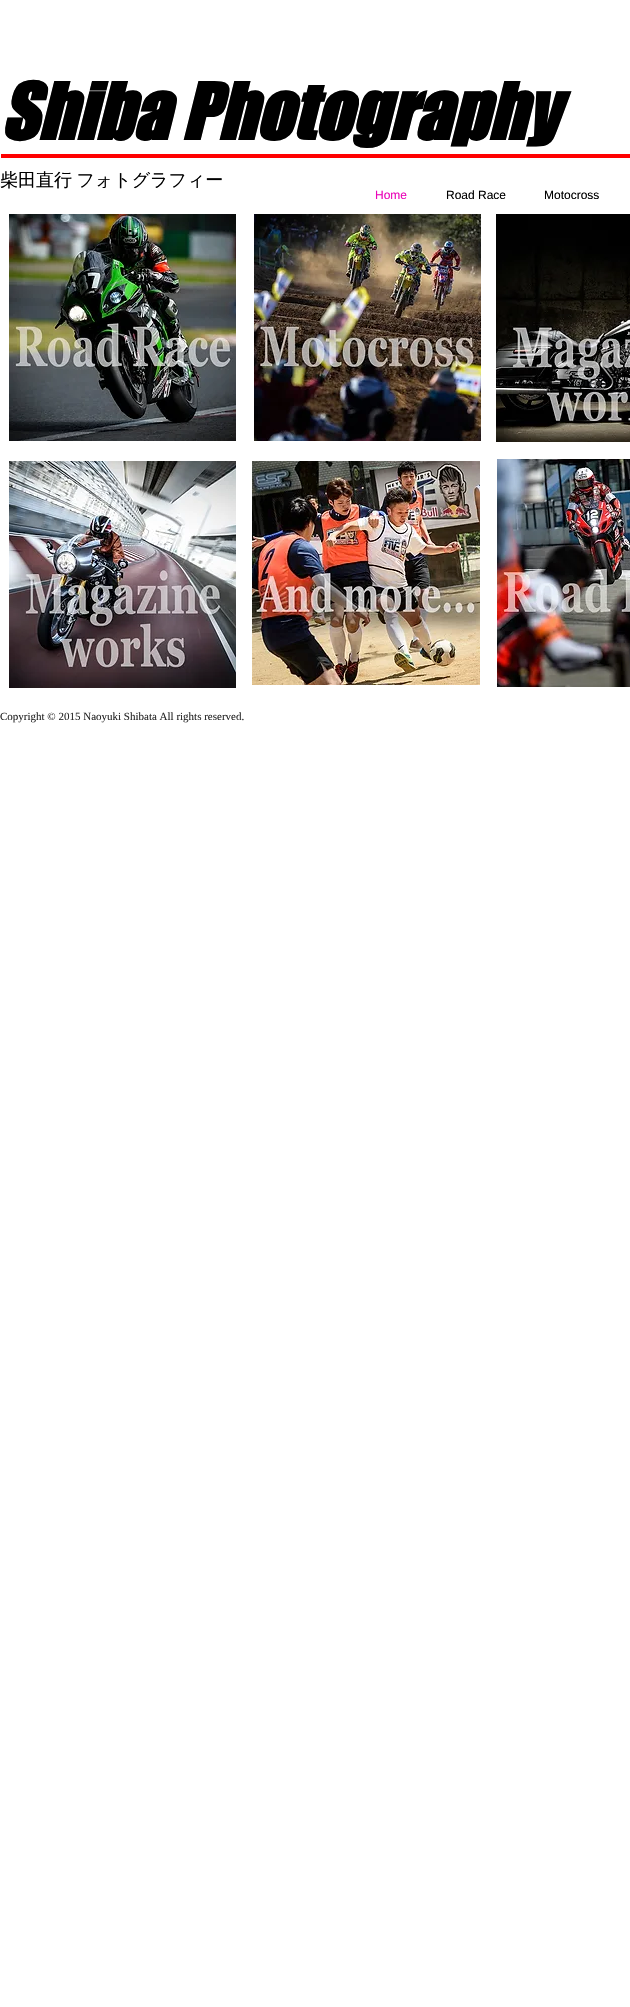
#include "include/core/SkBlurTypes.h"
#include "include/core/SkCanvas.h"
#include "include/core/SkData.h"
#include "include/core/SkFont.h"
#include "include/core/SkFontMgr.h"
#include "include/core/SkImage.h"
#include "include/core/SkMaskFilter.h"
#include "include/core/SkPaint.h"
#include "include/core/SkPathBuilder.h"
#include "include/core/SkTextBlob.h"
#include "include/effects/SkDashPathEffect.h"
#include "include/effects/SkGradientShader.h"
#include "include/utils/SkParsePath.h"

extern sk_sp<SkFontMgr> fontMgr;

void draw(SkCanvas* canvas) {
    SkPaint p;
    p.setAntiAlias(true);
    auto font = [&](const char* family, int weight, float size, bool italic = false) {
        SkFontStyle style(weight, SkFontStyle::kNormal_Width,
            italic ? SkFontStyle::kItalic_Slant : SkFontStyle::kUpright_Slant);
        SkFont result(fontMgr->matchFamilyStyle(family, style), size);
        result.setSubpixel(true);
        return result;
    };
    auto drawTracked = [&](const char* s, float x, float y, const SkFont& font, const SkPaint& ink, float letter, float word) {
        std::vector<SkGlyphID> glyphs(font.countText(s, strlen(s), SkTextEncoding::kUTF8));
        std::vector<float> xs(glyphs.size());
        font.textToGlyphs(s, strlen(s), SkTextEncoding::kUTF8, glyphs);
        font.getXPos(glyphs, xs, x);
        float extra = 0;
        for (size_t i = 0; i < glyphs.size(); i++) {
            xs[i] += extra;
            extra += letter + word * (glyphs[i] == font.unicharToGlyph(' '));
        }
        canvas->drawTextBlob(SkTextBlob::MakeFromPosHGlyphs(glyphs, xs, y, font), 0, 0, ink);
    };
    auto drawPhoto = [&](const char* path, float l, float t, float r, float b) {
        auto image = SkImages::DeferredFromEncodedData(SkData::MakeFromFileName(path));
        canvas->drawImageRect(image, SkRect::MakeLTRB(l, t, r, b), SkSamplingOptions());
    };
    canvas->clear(0xFFFFFFFF);
    auto font1 = font("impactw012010", 700, 72, true);
    p.setColor(0xFF000000);
    canvas->drawString("Shiba Photography", 0, 140, font1, p);
    p.setColor(0xFFFF0000);
    canvas->drawRect(SkRect::MakeLTRB(1, 154, 630, 158), p);
    auto font2 = font("WenQuanYi Zen Hei", 500, 18);
    p.setColor(0xFF000000);
    drawTracked("柴田直行 フォトグラフィー", 0, 186, font2, p, 0, -1);
    auto font3 = font("Liberation Sans", 400, 12);
    p.setColor(0xFFEA04B8);
    canvas->drawString("Home", 375, 199, font3, p);
    p.setColor(0xFF000000);
    canvas->drawString("Road Race", 446, 199, font3, p);
    canvas->drawString("Motocross", 544, 199, font3, p);
    drawPhoto("media/1.png", 9, 214, 236, 441);
    drawPhoto("media/2.png", 254, 214, 481, 441);
    drawPhoto("media/3.png", 496, 214, 630, 442);
    drawPhoto("media/4.png", 9, 461, 236, 688);
    drawPhoto("media/5.png", 252, 461, 480, 685);
    drawPhoto("media/6.png", 497, 459, 630, 687);
    auto font4 = font("Liberation Serif", 400, 11);
    p.setColor(0xFF272727);
    canvas->drawString("Copyright © 2015 Naoyuki Shibata All rights reserved.", 0, 720, font4, p);
}
